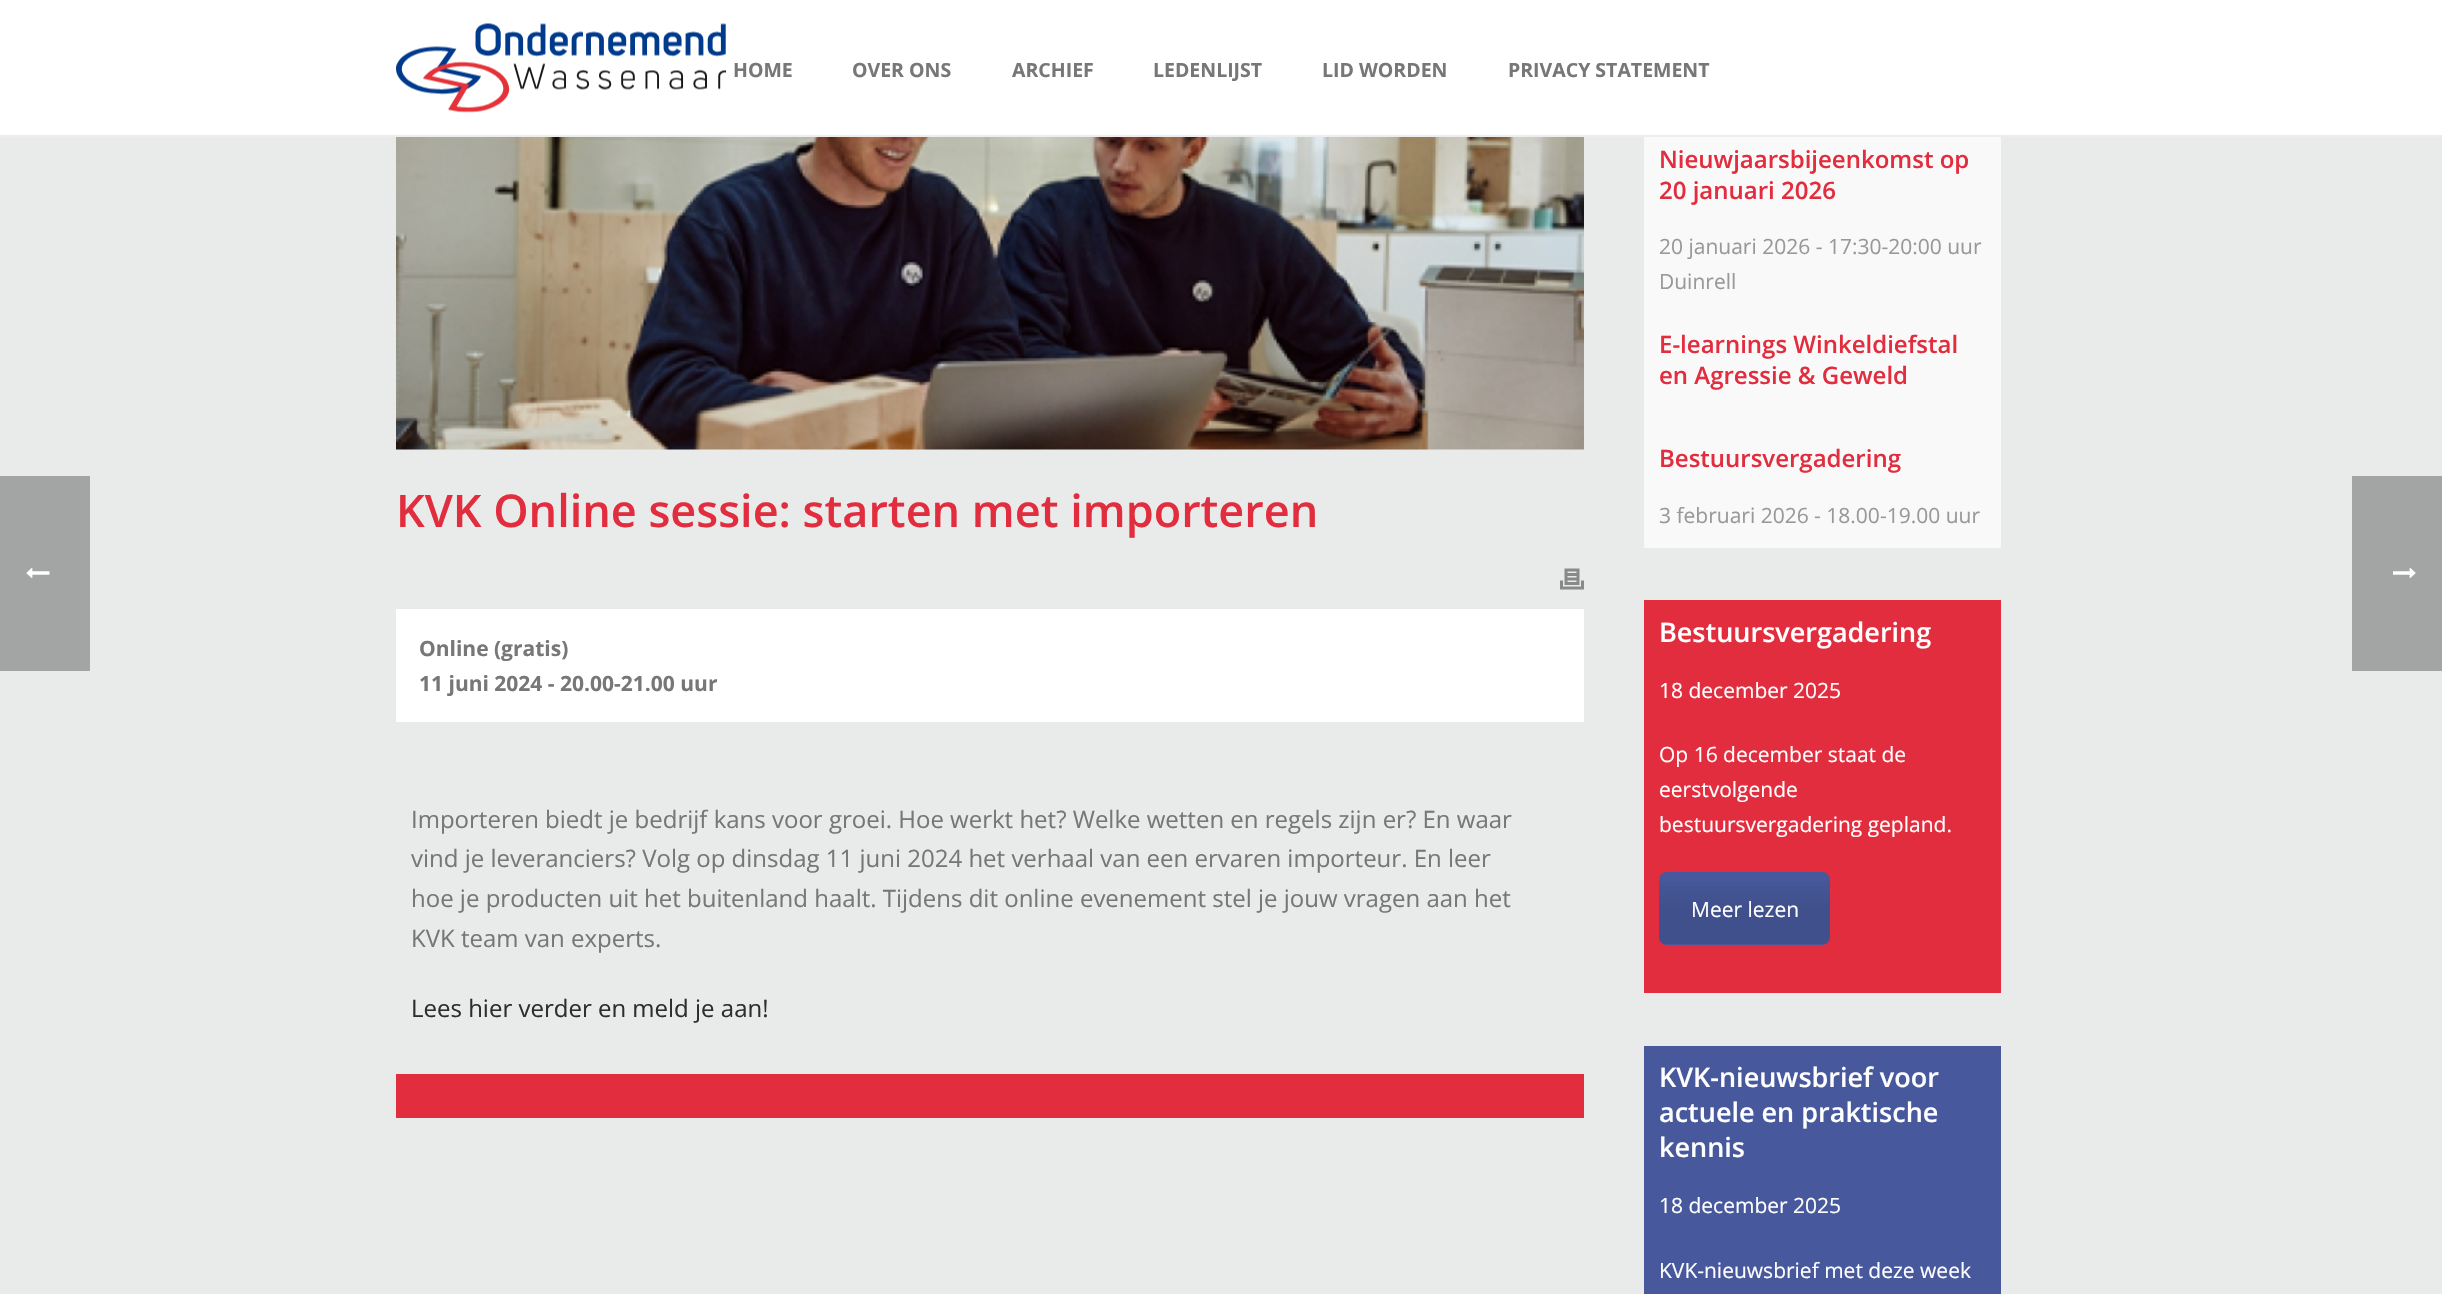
#include "include/core/SkBlurTypes.h"
#include "include/core/SkCanvas.h"
#include "include/core/SkData.h"
#include "include/core/SkFont.h"
#include "include/core/SkFontMgr.h"
#include "include/core/SkImage.h"
#include "include/core/SkMaskFilter.h"
#include "include/core/SkPaint.h"
#include "include/core/SkPathBuilder.h"
#include "include/core/SkTextBlob.h"
#include "include/effects/SkDashPathEffect.h"
#include "include/effects/SkGradientShader.h"
#include "include/utils/SkParsePath.h"

extern sk_sp<SkFontMgr> fontMgr;

void draw(SkCanvas* canvas) {
    SkPaint p;
    p.setAntiAlias(true);
    auto font = [&](const char* family, int weight, float size, bool italic = false) {
        SkFontStyle style(weight, SkFontStyle::kNormal_Width,
            italic ? SkFontStyle::kItalic_Slant : SkFontStyle::kUpright_Slant);
        SkFont result(fontMgr->matchFamilyStyle(family, style), size);
        result.setSubpixel(true);
        return result;
    };
    auto drawPhoto = [&](const char* path, float l, float t, float r, float b) {
        auto image = SkImages::DeferredFromEncodedData(SkData::MakeFromFileName(path));
        canvas->drawImageRect(image, SkRect::MakeLTRB(l, t, r, b), SkSamplingOptions());
    };
    canvas->clear(0xFFE9EAEA);
    p.setColor(0xFFA3A4A4);
    canvas->drawRect(SkRect::MakeLTRB(0, 476, 90, 671), p);
    drawPhoto("media/1.png", 26, 568, 50, 578);
    p.setColor(0xFFEDEDED);
    canvas->drawRect(SkRect::MakeLTRB(0, 135, 2442, 137), p);
    p.setColor(0xFFFFFFFF);
    canvas->drawRect(SkRect::MakeLTRB(0, 0, 2442, 135), p);
    drawPhoto("media/2.png", 396, 23, 726, 113);
    auto font1 = font("Open Sans", 700, 19.5f);
    p.setColor(0xFF777777);
    {
        const struct { const char* s; float x, y; } items[] = {
            {"HOME", 733, 77},
            {"OVER ONS", 852, 77},
            {"ARCHIEF", 1012, 77},
            {"LEDENLIJST", 1153, 77},
            {"LID WORDEN", 1322, 77},
            {"PRIVACY STATEMENT", 1508, 77},
        };
        for (auto [s, x, y] : items) {
            canvas->drawString(s, x, y, font1, p);
        }
    }
    drawPhoto("media/3.png", 396, 137, 1584, 450);
    auto font2 = font("Open Sans", 600, 45);
    p.setColor(0xFFE22D3E);
    canvas->drawString("KVK Online sessie: starten met importeren", 396, 527, font2, p);
    drawPhoto("media/4.png", 1560, 568, 1584, 590);
    p.setColor(0xFFFFFFFF);
    canvas->drawRect(SkRect::MakeLTRB(396, 609, 1584, 722), p);
    auto font3 = font("Open Sans", 700, 21);
    p.setColor(0xFF777777);
    canvas->drawString("Online (gratis)", 419, 656, font3, p);
    canvas->drawString("11 juni 2024 - 20.00-21.00 uur", 419, 691, font3, p);
    auto font4 = font("Open Sans", 400, 24);
    {
        const struct { const char* s; float x, y; } items[] = {
            {"Importeren biedt je bedrijf kans voor groei. Hoe werkt het? Welke wetten en regels zijn er? En waar", 411, 828},
            {"vind je leveranciers? Volg op dinsdag 11 juni 2024 het verhaal van een ervaren importeur. En leer", 411, 867},
            {"hoe je producten uit het buitenland haalt. Tijdens dit online evenement stel je jouw vragen aan het", 411, 907},
            {"KVK team van experts.", 411, 947},
        };
        for (auto [s, x, y] : items) {
            canvas->drawString(s, x, y, font4, p);
        }
    }
    p.setColor(0xFF2E2E2E);
    canvas->drawString("Lees hier verder en meld je aan!", 411, 1017, font4, p);
    p.setColor(0xFFE22D3E);
    canvas->drawRect(SkRect::MakeLTRB(396, 1074, 1584, 1118), p);
    p.setColor(0xFFF9F9F9);
    canvas->drawRect(SkRect::MakeLTRB(1644, 137, 2001, 548), p);
    auto font5 = font("Open Sans", 600, 24);
    p.setColor(0xFFE22D3E);
    canvas->drawString("Nieuwjaarsbijeenkomst op", 1659, 168, font5, p);
    canvas->drawString("20 januari 2026", 1659, 199, font5, p);
    auto font6 = font("Open Sans", 400, 21);
    p.setColor(0xFF999999);
    canvas->drawString("20 januari 2026 - 17:30-20:00 uur", 1659, 254, font6, p);
    canvas->drawString("Duinrell", 1659, 289, font6, p);
    p.setColor(0xFFE22D3E);
    {
        const struct { const char* s; float x, y; } items[] = {
            {"E-learnings Winkeldiefstal", 1659, 353},
            {"en Agressie & Geweld", 1659, 384},
            {"Bestuursvergadering", 1659, 467},
        };
        for (auto [s, x, y] : items) {
            canvas->drawString(s, x, y, font5, p);
        }
    }
    p.setColor(0xFF999999);
    canvas->drawString("3 februari 2026 - 18.00-19.00 uur", 1659, 523, font6, p);
    p.setColor(0xFFE22D3E);
    canvas->drawRect(SkRect::MakeLTRB(1644, 600, 2001, 993), p);
    auto font7 = font("Open Sans", 600, 27);
    p.setColor(0xFFFFFFFF);
    canvas->drawString("Bestuursvergadering", 1659, 642, font7, p);
    {
        const struct { const char* s; float x, y; } items[] = {
            {"18 december 2025", 1659, 698},
            {"Op 16 december staat de", 1659, 762},
            {"eerstvolgende", 1659, 797},
            {"bestuursvergadering gepland.", 1659, 832},
        };
        for (auto [s, x, y] : items) {
            canvas->drawString(s, x, y, font6, p);
        }
    }
    p.setColor(0xFF47599C);
    canvas->drawRoundRect(SkRect::MakeLTRB(1659, 872, 1830, 945), 8, 8, p);
    canvas->save();
    canvas->clipPath(SkPathBuilder().moveTo(1667, 872).lineTo(1822, 872).cubicTo(1826.5f, 872, 1830, 875.5f, 1830, 880).lineTo(1830, 937).cubicTo(1830, 941.5f, 1826.5f, 945, 1822, 945).lineTo(1667, 945).cubicTo(1662.5f, 945, 1659, 941.5f, 1659, 937).lineTo(1659, 880).cubicTo(1659, 875.5f, 1662.5f, 872, 1667, 872).close().detach(), true);
    {
        const SkColor colors[] = {0x00000000, 0x1A000000, 0x1A000000};
        const float stops[] = {0, 0.5f, 1};
        const SkPoint ends[] = {{1829, 873}, {1829, 944}};
        p.setShader(SkGradientShader::MakeLinear(ends, colors, stops, 3, SkTileMode::kClamp));
        p.setAlpha(255);
    }
    canvas->drawRect(SkRect::MakeLTRB(1659, 881, 1830, 944), p);
    canvas->restore();
    p.setShader(nullptr);
    p.setColor(0xFFFFFFFF);
    canvas->drawString("Meer lezen", 1691, 917, font6, p);
    p.setColor(0xFF47599C);
    canvas->drawRect(SkRect::MakeLTRB(1644, 1046, 2001, 1294), p);
    p.setColor(0xFFFFFFFF);
    {
        const struct { const char* s; float x, y; } items[] = {
            {"KVK-nieuwsbrief voor", 1659, 1087},
            {"actuele en praktische", 1659, 1122},
            {"kennis", 1659, 1157},
        };
        for (auto [s, x, y] : items) {
            canvas->drawString(s, x, y, font7, p);
        }
    }
    canvas->drawString("18 december 2025", 1659, 1213, font6, p);
    canvas->drawString("KVK-nieuwsbrief met deze week", 1659, 1278, font6, p);
    p.setColor(0xFFA3A4A4);
    canvas->drawRect(SkRect::MakeLTRB(2352, 476, 2442, 671), p);
    drawPhoto("media/5.png", 2393, 568, 2416, 578);
}
